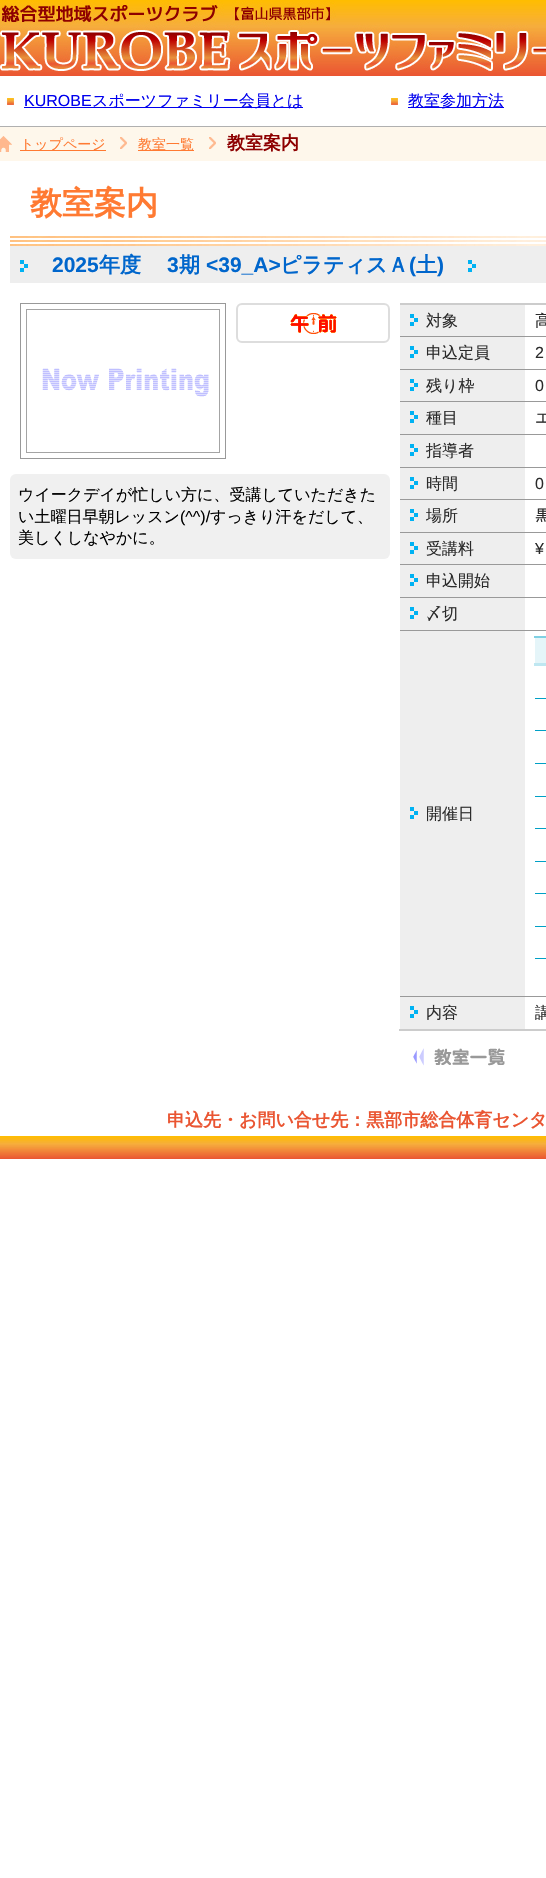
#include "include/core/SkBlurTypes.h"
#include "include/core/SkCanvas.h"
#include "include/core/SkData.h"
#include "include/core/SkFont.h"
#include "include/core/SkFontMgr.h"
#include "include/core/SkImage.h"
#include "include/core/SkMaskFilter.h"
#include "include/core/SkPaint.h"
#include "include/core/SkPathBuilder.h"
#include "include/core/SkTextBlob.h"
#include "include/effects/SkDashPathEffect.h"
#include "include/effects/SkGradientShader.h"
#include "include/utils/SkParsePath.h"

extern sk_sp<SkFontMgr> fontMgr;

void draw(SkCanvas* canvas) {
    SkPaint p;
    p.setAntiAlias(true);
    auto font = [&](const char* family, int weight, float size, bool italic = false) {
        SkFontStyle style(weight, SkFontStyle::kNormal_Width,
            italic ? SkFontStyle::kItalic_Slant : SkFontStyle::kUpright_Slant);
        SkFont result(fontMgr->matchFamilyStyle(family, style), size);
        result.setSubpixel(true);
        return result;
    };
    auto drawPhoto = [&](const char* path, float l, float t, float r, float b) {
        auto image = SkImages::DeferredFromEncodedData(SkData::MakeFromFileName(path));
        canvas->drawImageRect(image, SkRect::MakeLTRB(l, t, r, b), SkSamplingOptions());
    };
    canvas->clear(0xFFFFFFFF);
    drawPhoto("media/1.png", 0, 0, 546, 76);
    p.setColor(0xFFB0B0B0);
    canvas->drawRect(SkRect::MakeLTRB(0, 126, 546, 127), p);
    drawPhoto("media/2.png", 0, 1, 546, 71);
    drawPhoto("media/3.png", 7, 98, 14, 105);
    auto font1 = font("Liberation Sans", 400, 16);
    p.setColor(0xFF0000EE);
    canvas->drawString("KUROBE", 24, 106, font1, p);
    canvas->drawRect(SkRect::MakeLTRB(24, 107, 303, 108), p);
    auto font2 = font("WenQuanYi Zen Hei", 500, 16);
    canvas->drawString("スポーツファミリー会員とは", 92, 106, font2, p);
    drawPhoto("media/3.png", 391, 98, 398, 105);
    canvas->drawRect(SkRect::MakeLTRB(408, 107, 504, 108), p);
    canvas->drawString("教室参加方法", 408, 106, font2, p);
    p.setColor(0xFFFEF7EB);
    canvas->drawRect(SkRect::MakeLTRB(0, 127, 546, 161), p);
    drawPhoto("media/4.png", 0, 136, 12, 152);
    p.setColor(0xFFFF7A32);
    canvas->drawRect(SkRect::MakeLTRB(20, 150, 106, 151), p);
    auto font3 = font("WenQuanYi Zen Hei", 500, 14);
    canvas->drawString("トップページ", 20, 149, font3, p);
    drawPhoto("media/5.png", 120, 137, 127, 149);
    canvas->drawRect(SkRect::MakeLTRB(138, 150, 194, 151), p);
    canvas->drawString("教室一覧", 138, 149, font3, p);
    drawPhoto("media/5.png", 209, 137, 216, 149);
    auto font4 = font("WenQuanYi Zen Hei", 700, 18);
    p.setColor(0xFF8D0000);
    canvas->drawString("教室案内", 227, 149, font4, p);
    drawPhoto("media/6.png", 10, 236, 546, 246);
    auto font5 = font("WenQuanYi Zen Hei", 700, 32);
    p.setColor(0xFFFF7A32);
    canvas->drawString("教室案内", 30, 214, font5, p);
    p.setColor(0xFFEEEEEE);
    canvas->drawRect(SkRect::MakeLTRB(10, 246, 546, 283), p);
    drawPhoto("media/7.png", 20, 260, 28, 272);
    auto font6 = font("Liberation Sans", 700, 21);
    p.setColor(0xFF0066CC);
    canvas->drawString("2025", 52, 272, font6, p);
    auto font7 = font("WenQuanYi Zen Hei", 700, 21);
    canvas->drawString("年度", 99, 272, font7, p);
    canvas->drawString("3", 167, 272, font6, p);
    canvas->drawString("期", 179, 272, font7, p);
    canvas->drawString("<39_A>", 206, 272, font6, p);
    canvas->drawString("ピラティスＡ", 280, 272, font7, p);
    canvas->drawString("(", 409, 272, font6, p);
    canvas->drawString("土", 416, 272, font7, p);
    canvas->drawString(")", 437, 272, font6, p);
    drawPhoto("media/7.png", 468, 260, 476, 272);
    p.setStyle(SkPaint::kStroke_Style);
    p.setStrokeWidth(1);
    p.setColor(0xFF999999);
    canvas->drawRect(SkRect::MakeLTRB(20.5f, 303.5f, 225.5f, 458.5f), p);
    p.setStrokeWidth(2);
    p.setColor(0xFFDDDDDD);
    canvas->drawRoundRect(SkRect::MakeLTRB(237, 304, 389, 342), 5, 5, p);
    drawPhoto("media/8.png", 290, 313, 337, 334);
    drawPhoto("media/9.png", 26, 309, 220, 453);
    p.setStyle(SkPaint::kFill_Style);
    p.setColor(0xFFF0F0F0);
    canvas->drawRoundRect(SkRect::MakeLTRB(10, 474, 390, 559), 6, 6, p);
    p.setColor(0xFF000000);
    canvas->drawString("ウイークデイが忙しい方に、受講していただきた", 18, 500, font2, p);
    canvas->drawString("い土曜日早朝レッスン", 18, 522, font2, p);
    canvas->drawString("(^^)/", 180, 522, font1, p);
    canvas->drawString("すっきり汗をだして、", 210, 522, font2, p);
    canvas->drawString("美しくしなやかに。", 18, 543, font2, p);
    p.setColor(0xFFCCCCCC);
    canvas->drawRect(SkRect::MakeLTRB(400, 303, 546, 305), p);
    p.setColor(0xFFEEEEEE);
    canvas->drawRect(SkRect::MakeLTRB(400, 305, 525, 336), p);
    drawPhoto("media/7.png", 410, 314, 418, 326);
    p.setColor(0xFF2B2B2B);
    canvas->drawString("対象", 426, 326, font2, p);
    canvas->drawString("高", 535, 326, font2, p);
    p.setColor(0xFFEEEEEE);
    canvas->drawRect(SkRect::MakeLTRB(400, 337, 525, 369), p);
    drawPhoto("media/7.png", 410, 346, 418, 358);
    p.setColor(0xFF2B2B2B);
    canvas->drawString("申込定員", 426, 358, font2, p);
    p.setColor(0xFF999999);
    canvas->drawRect(SkRect::MakeLTRB(400, 336, 546, 337), p);
    p.setColor(0xFF2B2B2B);
    canvas->drawString("2", 535, 358, font1, p);
    p.setColor(0xFFEEEEEE);
    canvas->drawRect(SkRect::MakeLTRB(400, 370, 525, 401), p);
    drawPhoto("media/7.png", 410, 379, 418, 391);
    p.setColor(0xFF2B2B2B);
    canvas->drawString("残り枠", 426, 391, font2, p);
    p.setColor(0xFF999999);
    canvas->drawRect(SkRect::MakeLTRB(400, 369, 546, 370), p);
    p.setColor(0xFF2B2B2B);
    canvas->drawString("0", 535, 391, font1, p);
    p.setColor(0xFFEEEEEE);
    canvas->drawRect(SkRect::MakeLTRB(400, 402, 525, 434), p);
    drawPhoto("media/7.png", 410, 411, 418, 423);
    p.setColor(0xFF2B2B2B);
    canvas->drawString("種目", 426, 423, font2, p);
    p.setColor(0xFF999999);
    canvas->drawRect(SkRect::MakeLTRB(400, 401, 546, 402), p);
    p.setColor(0xFF2B2B2B);
    canvas->drawString("エ", 535, 423, font2, p);
    p.setColor(0xFF999999);
    canvas->drawRect(SkRect::MakeLTRB(400, 434, 546, 435), p);
    p.setColor(0xFFEEEEEE);
    canvas->drawRect(SkRect::MakeLTRB(400, 435, 525, 467), p);
    drawPhoto("media/7.png", 410, 444, 418, 456);
    p.setColor(0xFF2B2B2B);
    canvas->drawString("指導者", 426, 456, font2, p);
    p.setColor(0xFFEEEEEE);
    canvas->drawRect(SkRect::MakeLTRB(400, 468, 525, 499), p);
    drawPhoto("media/7.png", 410, 477, 418, 489);
    p.setColor(0xFF2B2B2B);
    canvas->drawString("時間", 426, 489, font2, p);
    p.setColor(0xFF999999);
    canvas->drawRect(SkRect::MakeLTRB(400, 467, 546, 468), p);
    p.setColor(0xFF2B2B2B);
    canvas->drawString("0", 535, 489, font1, p);
    p.setColor(0xFFEEEEEE);
    canvas->drawRect(SkRect::MakeLTRB(400, 500, 525, 532), p);
    drawPhoto("media/7.png", 410, 509, 418, 521);
    p.setColor(0xFF2B2B2B);
    canvas->drawString("場所", 426, 521, font2, p);
    p.setColor(0xFF999999);
    canvas->drawRect(SkRect::MakeLTRB(400, 499, 546, 500), p);
    auto font8 = font("IPAPGothic", 400, 16);
    p.setColor(0xFF2B2B2B);
    canvas->drawString("黒", 535, 521, font8, p);
    p.setColor(0xFFEEEEEE);
    canvas->drawRect(SkRect::MakeLTRB(400, 533, 525, 564), p);
    drawPhoto("media/7.png", 410, 542, 418, 554);
    p.setColor(0xFF2B2B2B);
    canvas->drawString("受講料", 426, 554, font2, p);
    p.setColor(0xFF999999);
    canvas->drawRect(SkRect::MakeLTRB(400, 532, 546, 533), p);
    p.setColor(0xFF2B2B2B);
    canvas->drawString("¥", 535, 554, font1, p);
    p.setColor(0xFF999999);
    canvas->drawRect(SkRect::MakeLTRB(400, 564, 546, 565), p);
    p.setColor(0xFFEEEEEE);
    canvas->drawRect(SkRect::MakeLTRB(400, 565, 525, 597), p);
    drawPhoto("media/7.png", 410, 574, 418, 586);
    p.setColor(0xFF2B2B2B);
    canvas->drawString("申込開始", 426, 586, font2, p);
    p.setColor(0xFF999999);
    canvas->drawRect(SkRect::MakeLTRB(400, 597, 546, 598), p);
    p.setColor(0xFFEEEEEE);
    canvas->drawRect(SkRect::MakeLTRB(400, 598, 525, 630), p);
    drawPhoto("media/7.png", 410, 607, 418, 619);
    p.setColor(0xFF2B2B2B);
    canvas->drawString("〆切", 426, 619, font2, p);
    {
        const struct { float l, t, r, b; SkColor color; } items[] = {
            {400, 630, 546, 631, 0xFF999999},
            {535, 638, 546, 663, 0xFFE5F5F9},
            {534, 636, 546, 638, 0xFF80D0E3},
            {534, 663, 546, 666, 0xFFBFE7F1},
            {535, 698, 546, 699, 0xFF00A0C6},
            {535, 730, 546, 731, 0xFF00A0C6},
            {535, 763, 546, 764, 0xFF00A0C6},
            {535, 796, 546, 797, 0xFF00A0C6},
            {535, 828, 546, 829, 0xFF00A0C6},
            {535, 861, 546, 862, 0xFF00A0C6},
            {535, 893, 546, 894, 0xFF00A0C6},
            {535, 926, 546, 927, 0xFF00A0C6},
            {535, 958, 546, 959, 0xFF00A0C6},
            {400, 631, 525, 996, 0xFFEEEEEE},
        };
        for (auto [l, t, r, b, color] : items) {
            p.setColor(color);
            canvas->drawRect(SkRect::MakeLTRB(l, t, r, b), p);
        }
    }
    drawPhoto("media/7.png", 410, 807, 418, 819);
    p.setColor(0xFF2B2B2B);
    canvas->drawString("開催日", 426, 819, font2, p);
    p.setColor(0xFFEEEEEE);
    canvas->drawRect(SkRect::MakeLTRB(400, 997, 525, 1029), p);
    drawPhoto("media/7.png", 410, 1006, 418, 1018);
    p.setColor(0xFF2B2B2B);
    canvas->drawString("内容", 426, 1018, font2, p);
    p.setColor(0xFF999999);
    canvas->drawRect(SkRect::MakeLTRB(400, 996, 546, 997), p);
    p.setColor(0xFF2B2B2B);
    canvas->drawString("講", 535, 1018, font2, p);
    p.setColor(0xFFCCCCCC);
    canvas->drawRect(SkRect::MakeLTRB(399, 1029, 546, 1031), p);
    drawPhoto("media/10.png", 413, 1048, 505, 1066);
    p.setColor(0xFFEA5532);
    canvas->drawString("申込先・お問い合せ先：黒部市総合体育センタ", 167, 1126, font4, p);
    drawPhoto("media/11.png", 0, 1136, 546, 1159);
}
